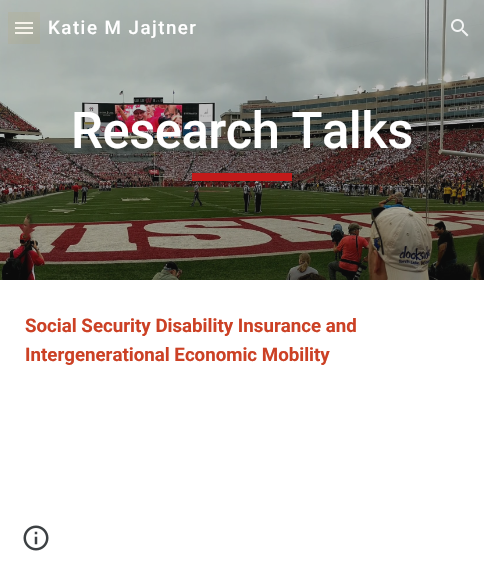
#include "include/core/SkBlurTypes.h"
#include "include/core/SkCanvas.h"
#include "include/core/SkData.h"
#include "include/core/SkFont.h"
#include "include/core/SkFontMgr.h"
#include "include/core/SkImage.h"
#include "include/core/SkMaskFilter.h"
#include "include/core/SkPaint.h"
#include "include/core/SkPathBuilder.h"
#include "include/core/SkTextBlob.h"
#include "include/effects/SkDashPathEffect.h"
#include "include/effects/SkGradientShader.h"
#include "include/utils/SkParsePath.h"

extern sk_sp<SkFontMgr> fontMgr;

void draw(SkCanvas* canvas) {
    SkPaint p;
    p.setAntiAlias(true);
    auto font = [&](const char* family, int weight, float size, bool italic = false) {
        SkFontStyle style(weight, SkFontStyle::kNormal_Width,
            italic ? SkFontStyle::kItalic_Slant : SkFontStyle::kUpright_Slant);
        SkFont result(fontMgr->matchFamilyStyle(family, style), size);
        result.setSubpixel(true);
        return result;
    };
    auto drawTracked = [&](const char* s, float x, float y, const SkFont& font, const SkPaint& ink, float letter, float word) {
        std::vector<SkGlyphID> glyphs(font.countText(s, strlen(s), SkTextEncoding::kUTF8));
        std::vector<float> xs(glyphs.size());
        font.textToGlyphs(s, strlen(s), SkTextEncoding::kUTF8, glyphs);
        font.getXPos(glyphs, xs, x);
        float extra = 0;
        for (size_t i = 0; i < glyphs.size(); i++) {
            xs[i] += extra;
            extra += letter + word * (glyphs[i] == font.unicharToGlyph(' '));
        }
        canvas->drawTextBlob(SkTextBlob::MakeFromPosHGlyphs(glyphs, xs, y, font), 0, 0, ink);
    };
    auto drawPhoto = [&](const char* path, float l, float t, float r, float b) {
        auto image = SkImages::DeferredFromEncodedData(SkData::MakeFromFileName(path));
        canvas->drawImageRect(image, SkRect::MakeLTRB(l, t, r, b), SkSamplingOptions());
    };
    canvas->clear(0xFFFFFFFF);
    drawPhoto("media/2.png", 0, 0, 484, 280);
    {
        const struct { float l, t, r, b; SkColor color; } items[] = {
            {15, 22, 33, 24, 0xFFFFFFFF},
            {15, 27, 33, 29, 0xFFFFFFFF},
            {15, 32, 33, 34, 0xFFFFFFFF},
            {8, 12, 40, 44, 0x1FB79951},
        };
        for (auto [l, t, r, b, color] : items) {
            p.setColor(color);
            canvas->drawRect(SkRect::MakeLTRB(l, t, r, b), p);
        }
    }
    auto font1 = font("Roboto", 500, 18.7f);
    p.setColor(0xFFFFFFFF);
    drawTracked("Katie M Jajtner", 48, 34, font1, p, 1.5f, 0);
    drawPhoto("media/1.png", 451, 19, 469, 37);
    auto font2 = font("Roboto", 500, 50.75f);
    drawTracked("Research Talks", 71, 148, font2, p, -0.5f, 0);
    p.setColor(0xFFC21A1A);
    canvas->drawRect(SkRect::MakeLTRB(192, 173, 292, 181), p);
    auto font3 = font("Roboto", 700, 18.7f);
    p.setColor(0xFFCC4125);
    canvas->drawString("Social Security Disability Insurance and", 25, 332, font3, p);
    canvas->drawString("Intergenerational Economic Mobility", 25, 361, font3, p);
    drawPhoto("media/3.png", 23, 525, 49, 551);
}
